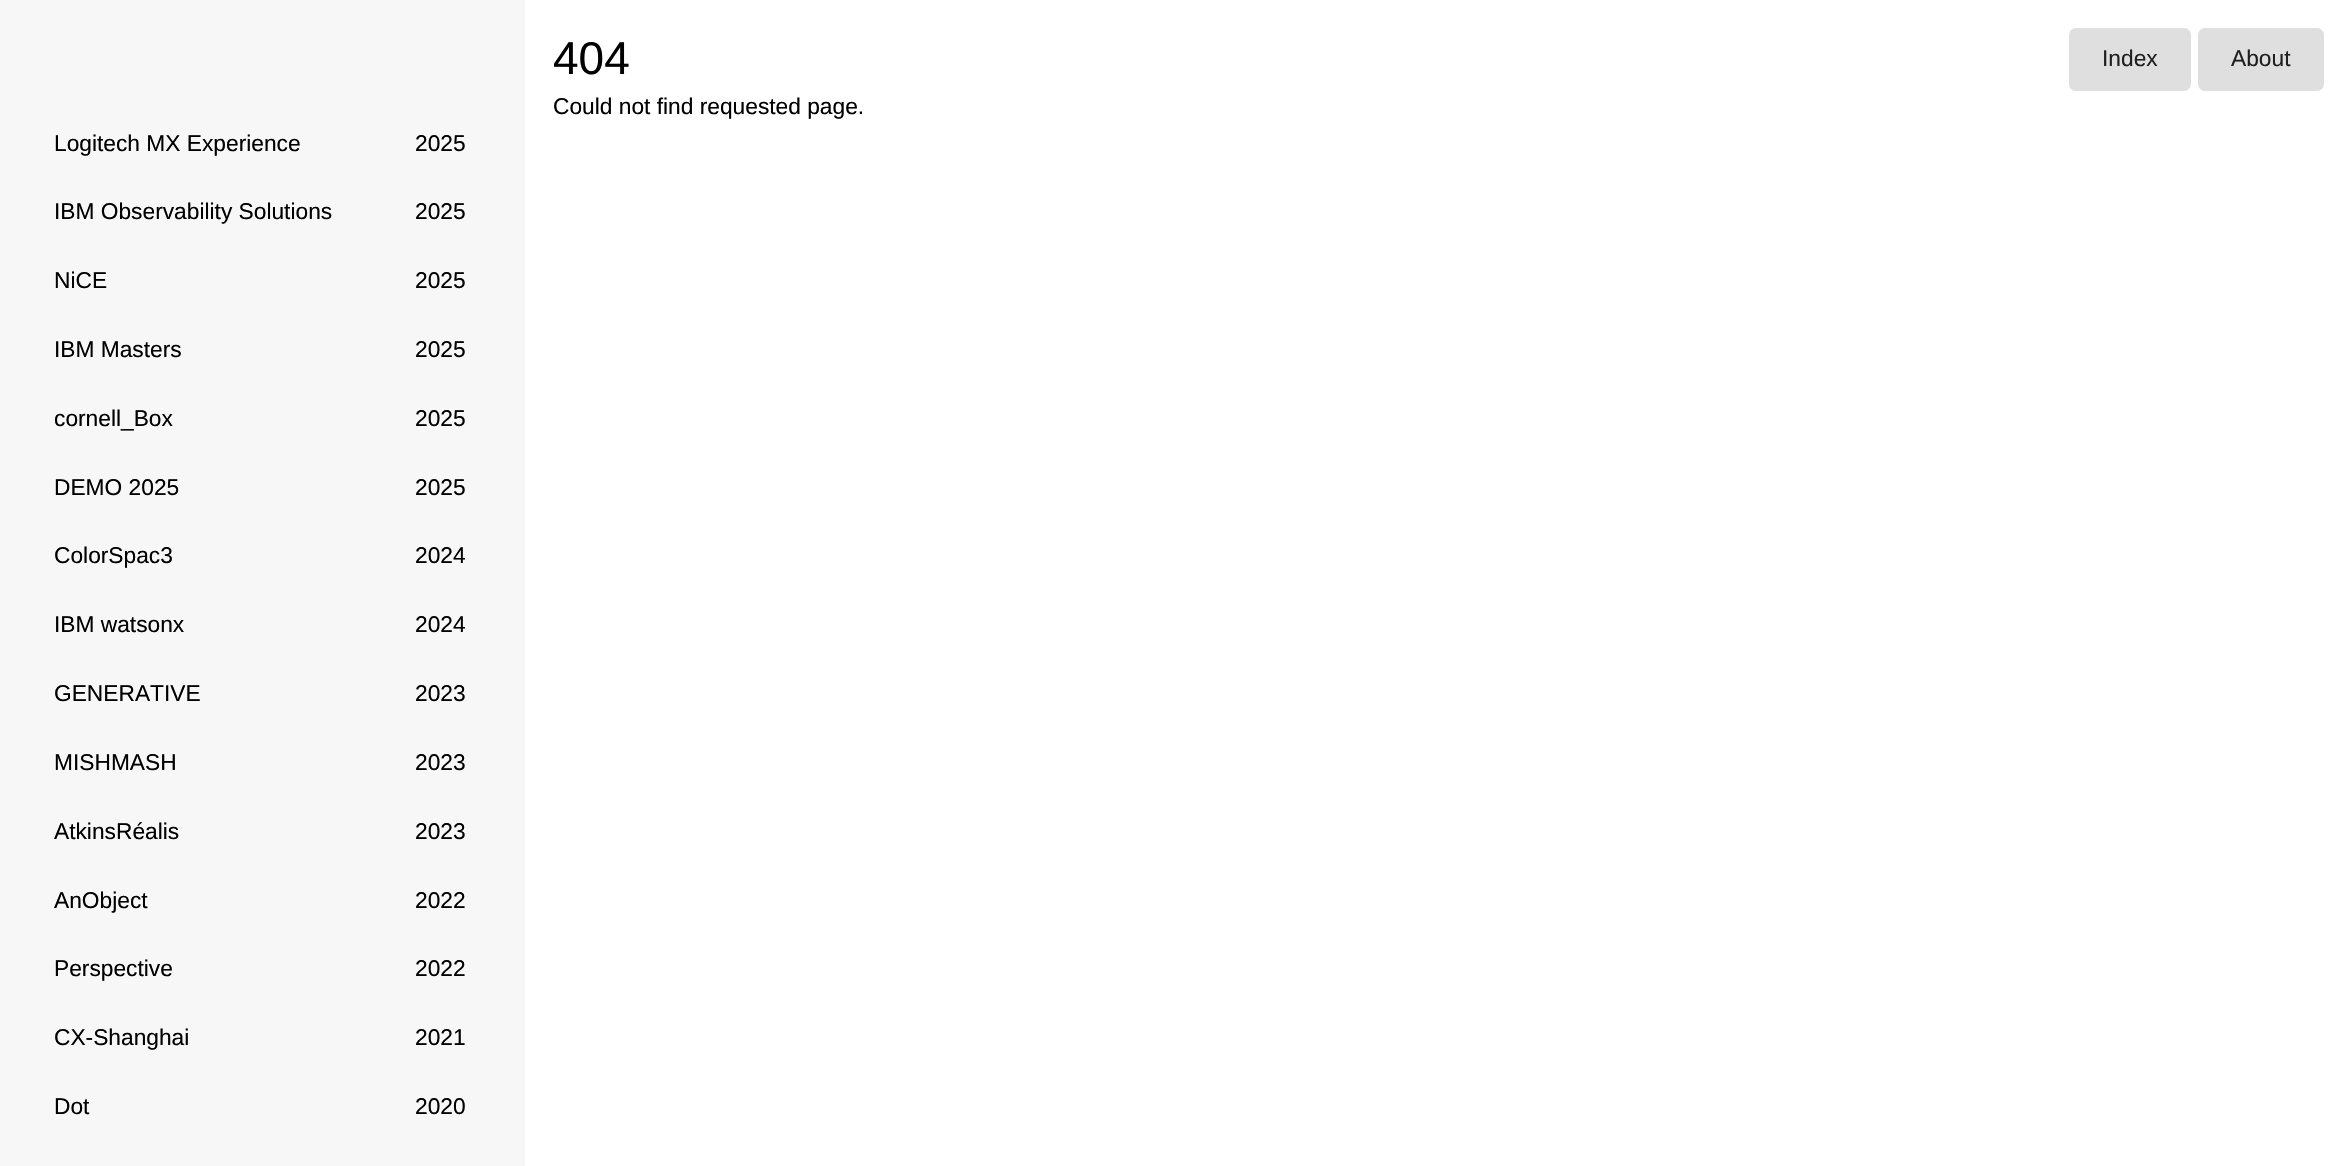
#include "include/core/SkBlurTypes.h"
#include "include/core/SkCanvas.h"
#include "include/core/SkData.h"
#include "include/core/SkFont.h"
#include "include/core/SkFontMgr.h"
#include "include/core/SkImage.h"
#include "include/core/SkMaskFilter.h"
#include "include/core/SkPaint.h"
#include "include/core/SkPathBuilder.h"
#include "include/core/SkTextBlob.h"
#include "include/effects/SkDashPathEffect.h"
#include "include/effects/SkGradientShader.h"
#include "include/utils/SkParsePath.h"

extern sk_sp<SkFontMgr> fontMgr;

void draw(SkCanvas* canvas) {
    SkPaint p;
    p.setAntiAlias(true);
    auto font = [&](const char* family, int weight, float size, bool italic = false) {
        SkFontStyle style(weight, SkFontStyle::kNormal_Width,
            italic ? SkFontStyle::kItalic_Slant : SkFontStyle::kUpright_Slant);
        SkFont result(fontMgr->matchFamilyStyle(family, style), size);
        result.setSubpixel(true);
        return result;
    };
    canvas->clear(0xFFFFFFFF);
    auto font1 = font("Liberation Sans", 400, 46);
    p.setColor(0xFF000000);
    canvas->drawString("404", 553, 74, font1, p);
    auto font2 = font("Liberation Sans", 400, 22.75f);
    canvas->drawString("Could not find requested page.", 553, 114, font2, p);
    p.setColor(0xFFF7F7F7);
    canvas->drawRect(SkRect::MakeLTRB(0, 0, 525, 1166), p);
    p.setColor(0xFF000000);
    {
        const struct { const char* s; float x, y; } items[] = {
            {"Logitech MX Experience", 54, 151},
            {"2025", 415, 151},
            {"IBM Observability Solutions", 54, 219},
            {"2025", 415, 219},
            {"NiCE", 54, 288},
            {"2025", 415, 288},
            {"IBM Masters", 54, 357},
            {"2025", 415, 357},
            {"cornell_Box", 54, 426},
            {"2025", 415, 426},
            {"DEMO 2025", 54, 495},
            {"2025", 415, 495},
            {"ColorSpac3", 54, 563},
            {"2024", 415, 563},
            {"IBM watsonx", 54, 632},
            {"2024", 415, 632},
            {"GENERATIVE", 54, 701},
            {"2023", 415, 701},
            {"MISHMASH", 54, 770},
            {"2023", 415, 770},
            {"AtkinsRéalis", 54, 839},
            {"2023", 415, 839},
            {"AnObject", 54, 908},
            {"2022", 415, 908},
            {"Perspective", 54, 976},
            {"2022", 415, 976},
            {"CX-Shanghai", 54, 1045},
            {"2021", 415, 1045},
            {"Dot", 54, 1114},
            {"2020", 415, 1114},
        };
        for (auto [s, x, y] : items) {
            canvas->drawString(s, x, y, font2, p);
        }
    }
    p.setColor(0xFFDFDFDF);
    canvas->drawRoundRect(SkRect::MakeLTRB(2069, 28, 2191, 91), 7, 7, p);
    p.setColor(0xFF1F1F1F);
    canvas->drawString("Index", 2102, 66, font2, p);
    p.setColor(0xFFDFDFDF);
    canvas->drawRoundRect(SkRect::MakeLTRB(2198, 28, 2324, 91), 7, 7, p);
    p.setColor(0xFF1F1F1F);
    canvas->drawString("About", 2231, 66, font2, p);
}
